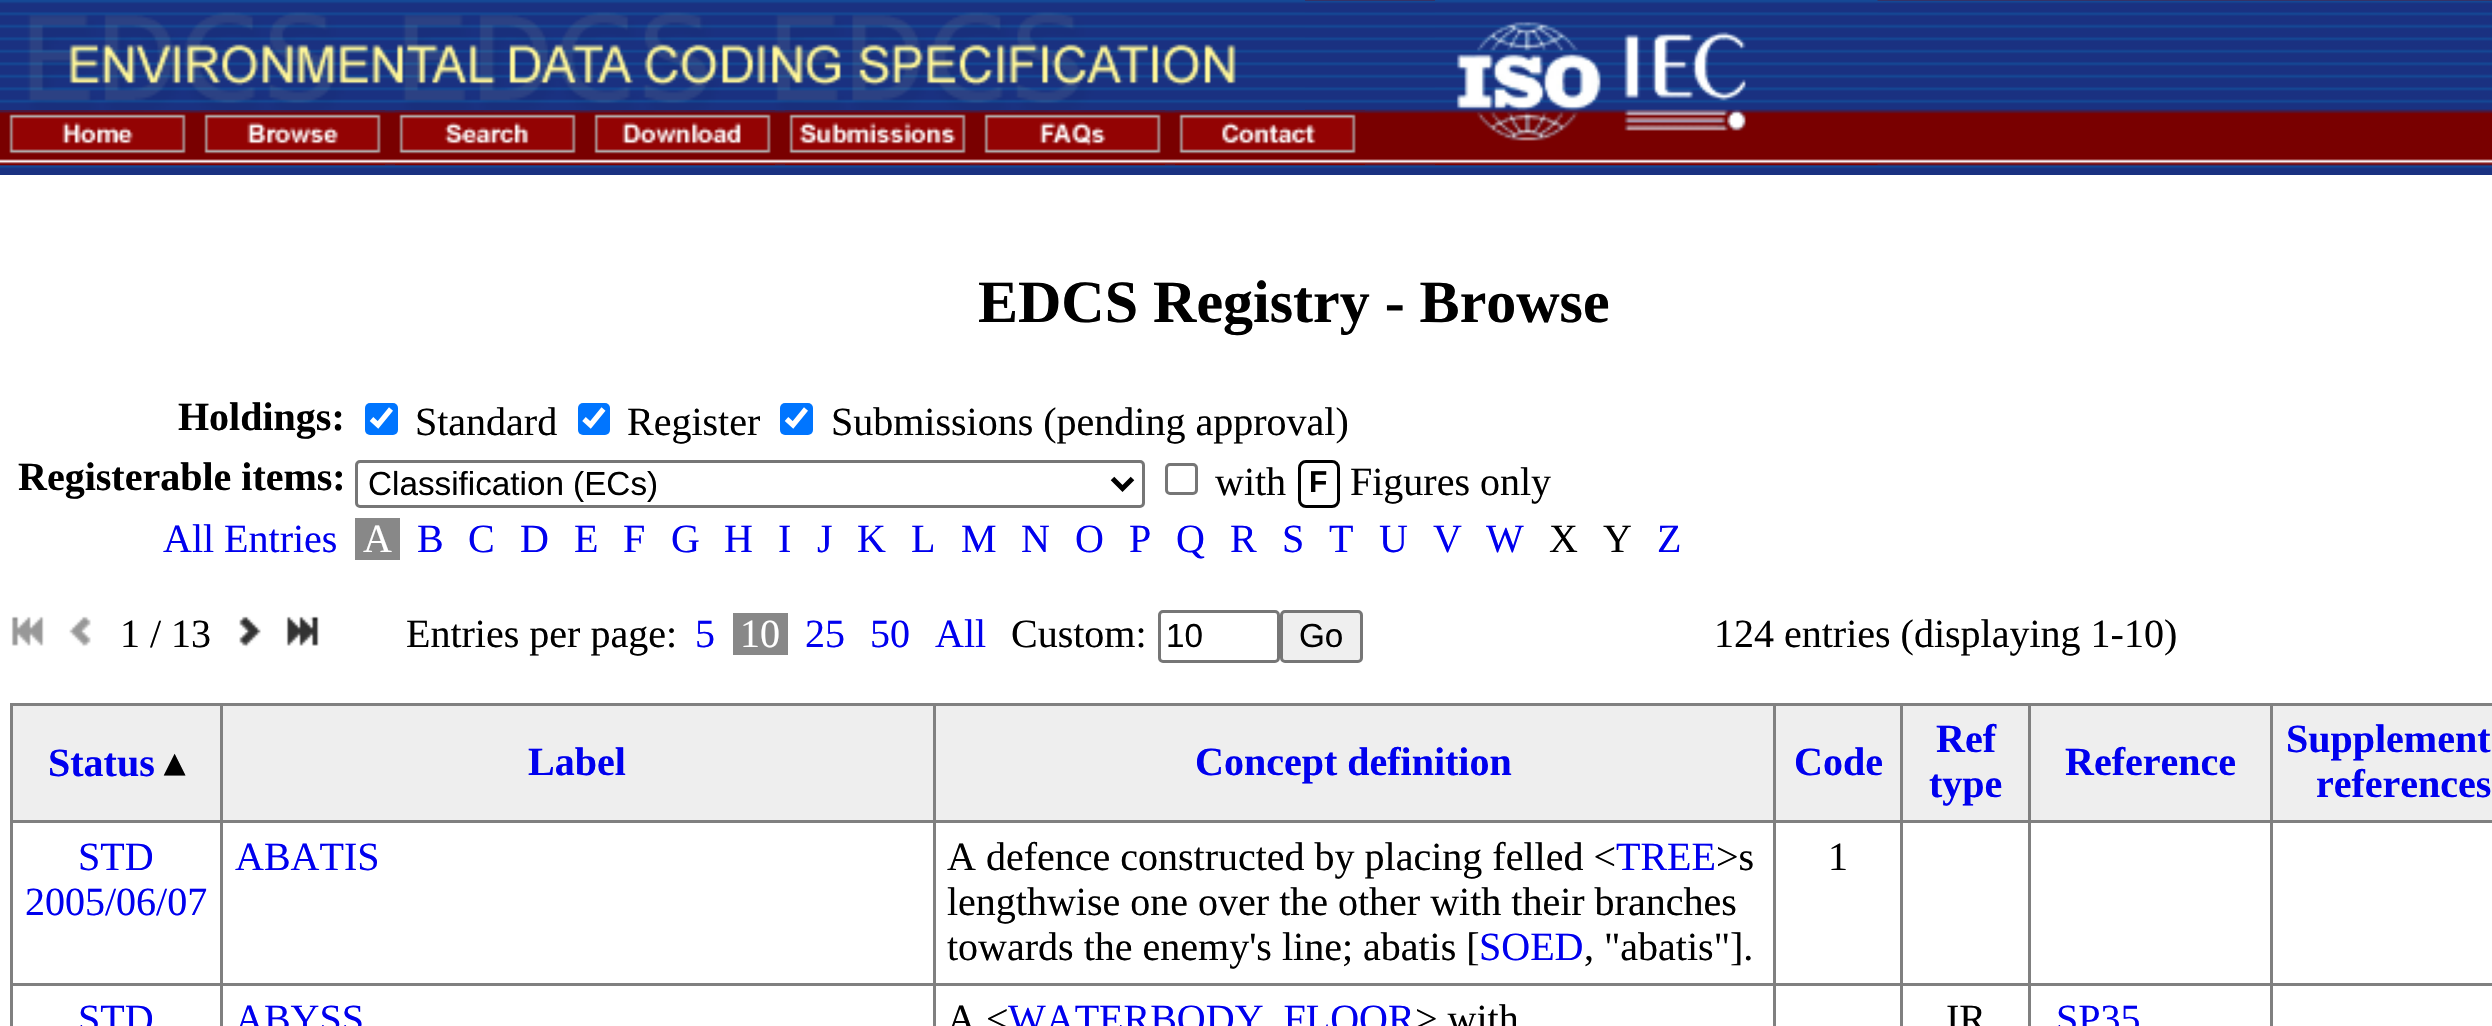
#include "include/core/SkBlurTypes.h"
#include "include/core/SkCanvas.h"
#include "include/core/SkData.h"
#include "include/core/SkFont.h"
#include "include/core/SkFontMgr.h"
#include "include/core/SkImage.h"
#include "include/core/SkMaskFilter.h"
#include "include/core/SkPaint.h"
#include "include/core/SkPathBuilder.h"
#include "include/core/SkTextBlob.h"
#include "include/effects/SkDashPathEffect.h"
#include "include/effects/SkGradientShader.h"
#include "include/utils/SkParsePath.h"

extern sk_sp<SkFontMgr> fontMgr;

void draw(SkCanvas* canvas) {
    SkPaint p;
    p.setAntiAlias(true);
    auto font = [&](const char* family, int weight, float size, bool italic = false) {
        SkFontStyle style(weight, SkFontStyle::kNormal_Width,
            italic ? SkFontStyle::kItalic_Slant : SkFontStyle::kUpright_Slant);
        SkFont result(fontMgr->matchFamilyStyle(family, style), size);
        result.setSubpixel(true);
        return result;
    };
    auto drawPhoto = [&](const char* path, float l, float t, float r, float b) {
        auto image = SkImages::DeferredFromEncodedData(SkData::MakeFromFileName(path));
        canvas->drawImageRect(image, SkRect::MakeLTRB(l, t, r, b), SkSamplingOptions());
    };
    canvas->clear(0xFFFFFFFF);
    drawPhoto("media/1.png", 0, 0, 2492, 175);
    drawPhoto("media/2.png", 0, 0, 1305, 110);
    drawPhoto("media/3.png", 1435, 0, 1765, 165);
    drawPhoto("media/4.png", 1765, 0, 1878, 165);
    drawPhoto("media/5.png", 0, 110, 190, 165);
    drawPhoto("media/6.png", 200, 110, 385, 165);
    drawPhoto("media/7.png", 395, 110, 580, 165);
    drawPhoto("media/8.png", 590, 110, 775, 165);
    drawPhoto("media/9.png", 785, 110, 970, 165);
    drawPhoto("media/10.png", 980, 110, 1165, 165);
    drawPhoto("media/11.png", 1175, 110, 1365, 165);
    auto font1 = font("Liberation Serif", 700, 60);
    p.setColor(0xFF000000);
    canvas->drawString("EDCS Registry - Browse", 978, 322, font1, p);
    auto font2 = font("Liberation Serif", 700, 40);
    canvas->drawString("Holdings:", 178, 430, font2, p);
    p.setColor(0xFF0075FF);
    canvas->drawRoundRect(SkRect::MakeLTRB(365, 403, 398, 435), 5, 5, p);
    p.setStyle(SkPaint::kStroke_Style);
    p.setStrokeWidth(5.2f);
    p.setColor(0xFFFFFFFF);
    canvas->drawPath(SkPathBuilder().moveTo(371.5f, 419).lineTo(378, 425).lineTo(391, 409).detach(), p);
    auto font3 = font("Liberation Serif", 400, 40);
    p.setStyle(SkPaint::kFill_Style);
    p.setColor(0xFF000000);
    canvas->drawString("Standard", 415, 435, font3, p);
    p.setColor(0xFF0075FF);
    canvas->drawRoundRect(SkRect::MakeLTRB(578, 403, 610, 435), 5, 5, p);
    p.setStyle(SkPaint::kStroke_Style);
    p.setColor(0xFFFFFFFF);
    canvas->drawPath(SkPathBuilder().moveTo(584, 419).lineTo(590.5f, 425).lineTo(603.5f, 409).detach(), p);
    p.setStyle(SkPaint::kFill_Style);
    p.setColor(0xFF000000);
    canvas->drawString("Register", 627, 435, font3, p);
    p.setColor(0xFF0075FF);
    canvas->drawRoundRect(SkRect::MakeLTRB(780, 403, 813, 435), 5, 5, p);
    p.setStyle(SkPaint::kStroke_Style);
    p.setColor(0xFFFFFFFF);
    canvas->drawPath(SkPathBuilder().moveTo(786.5f, 419).lineTo(793, 425).lineTo(806, 409).detach(), p);
    p.setStyle(SkPaint::kFill_Style);
    p.setColor(0xFF000000);
    canvas->drawString("Submissions (pending approval)", 831, 435, font3, p);
    canvas->drawString("Registerable items:", 18, 490, font2, p);
    p.setStyle(SkPaint::kStroke_Style);
    p.setStrokeWidth(3);
    p.setColor(0xFF767676);
    canvas->drawRoundRect(SkRect::MakeLTRB(356.5f, 461.5f, 1143.5f, 506.5f), 3.5f, 3.5f, p);
    p.setStrokeWidth(5);
    p.setColor(0xFF000000);
    canvas->drawPath(SkPathBuilder().moveTo(1112.5f, 478.5f).lineTo(1122.5f, 488.5f).lineTo(1132.5f, 478.5f).detach(), p);
    auto font4 = font("Liberation Sans", 400, 33.25f);
    p.setStyle(SkPaint::kFill_Style);
    canvas->drawString("Classification (ECs)", 368, 495, font4, p);
    p.setStyle(SkPaint::kStroke_Style);
    p.setStrokeWidth(3);
    p.setColor(0xFF767676);
    canvas->drawRoundRect(SkRect::MakeLTRB(1166.5f, 464.5f, 1196.5f, 493.5f), 3.5f, 3.5f, p);
    p.setStyle(SkPaint::kFill_Style);
    p.setColor(0xFF000000);
    canvas->drawString("with", 1215, 495, font3, p);
    p.setStyle(SkPaint::kStroke_Style);
    canvas->drawRoundRect(SkRect::MakeLTRB(1299.5f, 461.5f, 1338.5f, 506.5f), 6.5f, 6.5f, p);
    auto font5 = font("Liberation Sans", 700, 30);
    p.setStyle(SkPaint::kFill_Style);
    canvas->drawString("F", 1309, 492, font5, p);
    canvas->drawString("Figures only", 1350, 495, font3, p);
    p.setColor(0xFF0000EE);
    canvas->drawString("All Entries", 163, 552, font3, p);
    p.setColor(0xFF888888);
    canvas->drawRect(SkRect::MakeLTRB(355, 518, 400, 560), p);
    p.setColor(0xFFFFFFFF);
    canvas->drawString("A", 363, 552, font3, p);
    p.setColor(0xFF0000EE);
    {
        const struct { const char* s; float x, y; } items[] = {
            {"B", 417, 552},
            {"C", 468, 552},
            {"D", 520, 552},
            {"E", 574, 552},
            {"F", 623, 552},
            {"G", 671, 552},
            {"H", 724, 552},
            {"I", 778, 552},
            {"J", 817, 552},
            {"K", 857, 552},
            {"L", 911, 552},
            {"M", 961, 552},
            {"N", 1021, 552},
            {"O", 1075, 552},
            {"P", 1129, 552},
            {"Q", 1176, 552},
            {"R", 1230, 552},
            {"S", 1282, 552},
            {"T", 1329, 552},
            {"U", 1379, 552},
            {"V", 1433, 552},
            {"W", 1486, 552},
        };
        for (auto [s, x, y] : items) {
            canvas->drawString(s, x, y, font3, p);
        }
    }
    p.setColor(0xFF000000);
    canvas->drawString("X", 1549, 552, font3, p);
    canvas->drawString("Y", 1603, 552, font3, p);
    p.setColor(0xFF0000EE);
    canvas->drawString("Z", 1657, 552, font3, p);
    drawPhoto("media/12.png", 11, 616, 44, 646);
    drawPhoto("media/13.png", 69, 616, 91, 647);
    p.setColor(0xFF000000);
    canvas->drawString("1 / 13", 120, 647, font3, p);
    drawPhoto("media/14.png", 239, 616, 261, 648);
    drawPhoto("media/15.png", 286, 616, 319, 646);
    canvas->drawString("Entries per page:", 406, 647, font3, p);
    p.setColor(0xFF0000EE);
    canvas->drawString("5", 695, 647, font3, p);
    p.setColor(0xFF888888);
    canvas->drawRect(SkRect::MakeLTRB(733, 613, 788, 655), p);
    p.setColor(0xFFFFFFFF);
    canvas->drawString("10", 740, 647, font3, p);
    p.setColor(0xFF0000EE);
    {
        const struct { const char* s; float x, y; } items[] = {
            {"25", 805, 647},
            {"50", 870, 647},
            {"All", 935, 647},
        };
        for (auto [s, x, y] : items) {
            canvas->drawString(s, x, y, font3, p);
        }
    }
    p.setColor(0xFF000000);
    canvas->drawString("Custom:", 1011, 647, font3, p);
    p.setStyle(SkPaint::kStroke_Style);
    p.setColor(0xFF767676);
    canvas->drawRoundRect(SkRect::MakeLTRB(1159.5f, 611.5f, 1278.5f, 661.5f), 3.5f, 3.5f, p);
    p.setStyle(SkPaint::kFill_Style);
    p.setColor(0xFF000000);
    canvas->drawString("10", 1166, 647, font4, p);
    p.setColor(0xFFEFEFEF);
    canvas->drawRoundRect(SkRect::MakeLTRB(1281.5f, 611.5f, 1361.5f, 661.5f), 3.5f, 3.5f, p);
    p.setStyle(SkPaint::kStroke_Style);
    p.setColor(0xFF767676);
    canvas->drawRoundRect(SkRect::MakeLTRB(1281.5f, 611.5f, 1361.5f, 661.5f), 3.5f, 3.5f, p);
    p.setStyle(SkPaint::kFill_Style);
    p.setColor(0xFF000000);
    canvas->drawString("Go", 1299, 647, font4, p);
    canvas->drawString("124 entries (displaying 1-10)", 1714, 647, font3, p);
    {
        const struct { float l, t, r, b; SkColor color; } items[] = {
            {13, 706, 2492, 820, 0xFFEEEEEE},
            {2270, 703, 2492, 706, 0xFF808080},
            {2270, 820, 2492, 823, 0xFF808080},
            {2270, 983, 2492, 986, 0xFF808080},
            {2270, 983, 2273, 1026, 0xFF808080},
            {2028, 983, 2273, 986, 0xFF808080},
            {2270, 820, 2273, 985, 0xFF808080},
            {2028, 820, 2273, 823, 0xFF808080},
            {2270, 703, 2273, 823, 0xFF808080},
            {2028, 703, 2273, 706, 0xFF808080},
            {2028, 983, 2031, 1026, 0xFF808080},
            {1900, 983, 2030, 986, 0xFF808080},
            {2028, 820, 2031, 985, 0xFF808080},
            {1900, 820, 2030, 823, 0xFF808080},
            {2028, 703, 2031, 823, 0xFF808080},
            {1900, 703, 2030, 706, 0xFF808080},
            {1900, 983, 1903, 1026, 0xFF808080},
            {1773, 983, 1903, 986, 0xFF808080},
            {1900, 820, 1903, 985, 0xFF808080},
            {1773, 820, 1903, 823, 0xFF808080},
            {1900, 703, 1903, 823, 0xFF808080},
            {1773, 703, 1903, 706, 0xFF808080},
            {1773, 983, 1776, 1026, 0xFF808080},
            {933, 983, 1775, 986, 0xFF808080},
            {1773, 820, 1776, 985, 0xFF808080},
            {933, 820, 1775, 823, 0xFF808080},
            {1773, 703, 1776, 823, 0xFF808080},
            {933, 703, 1775, 706, 0xFF808080},
            {933, 983, 936, 1026, 0xFF808080},
            {220, 983, 935, 986, 0xFF808080},
            {933, 820, 936, 985, 0xFF808080},
            {220, 820, 935, 823, 0xFF808080},
            {933, 703, 936, 823, 0xFF808080},
            {220, 703, 935, 706, 0xFF808080},
            {220, 983, 223, 1026, 0xFF808080},
            {10, 983, 223, 986, 0xFF808080},
            {220, 820, 223, 985, 0xFF808080},
            {10, 820, 223, 823, 0xFF808080},
            {220, 703, 223, 823, 0xFF808080},
            {10, 703, 223, 706, 0xFF808080},
            {10, 983, 13, 1026, 0xFF808080},
            {10, 820, 13, 985, 0xFF808080},
            {10, 703, 13, 823, 0xFF808080},
        };
        for (auto [l, t, r, b, color] : items) {
            p.setColor(color);
            canvas->drawRect(SkRect::MakeLTRB(l, t, r, b), p);
        }
    }
    p.setColor(0xFF0000EE);
    canvas->drawString("Status", 48, 776, font2, p);
    auto font6 = font("DejaVu Sans", 700, 40);
    p.setColor(0xFF000000);
    canvas->drawString("▴", 164, 776, font6, p);
    p.setColor(0xFF0000EE);
    {
        const struct { const char* s; float x, y; } items[] = {
            {"Label", 528, 775},
            {"Concept definition", 1195, 775},
            {"Code", 1794, 775},
            {"Ref", 1936, 752},
            {"type", 1929, 797},
            {"Reference", 2065, 775},
            {"Supplement", 2286, 752},
            {"references", 2316, 797},
        };
        for (auto [s, x, y] : items) {
            canvas->drawString(s, x, y, font2, p);
        }
    }
    {
        const struct { const char* s; float x, y; } items[] = {
            {"STD", 78, 870},
            {"2005/06/07", 25, 915},
            {"ABATIS", 235, 870},
        };
        for (auto [s, x, y] : items) {
            canvas->drawString(s, x, y, font3, p);
        }
    }
    p.setColor(0xFF000000);
    canvas->drawString("A defence constructed by placing felled <", 947, 870, font3, p);
    p.setColor(0xFF0000EE);
    canvas->drawString("TREE", 1616, 870, font3, p);
    p.setColor(0xFF000000);
    {
        const struct { const char* s; float x, y; } items[] = {
            {">s", 1716, 870},
            {"lengthwise one over the other with their branches", 947, 915},
            {"towards the enemy's line; abatis [", 947, 960},
        };
        for (auto [s, x, y] : items) {
            canvas->drawString(s, x, y, font3, p);
        }
    }
    p.setColor(0xFF0000EE);
    canvas->drawString("SOED", 1479, 960, font3, p);
    p.setColor(0xFF000000);
    canvas->drawString(", \"abatis\"].", 1584, 960, font3, p);
    canvas->drawString("1", 1828, 870, font3, p);
    p.setColor(0xFF0000EE);
    canvas->drawString("STD", 78, 1032, font3, p);
    canvas->drawString("ABYSS", 235, 1032, font3, p);
    p.setColor(0xFF000000);
    canvas->drawString("A <", 947, 1032, font3, p);
    p.setColor(0xFF0000EE);
    canvas->drawString("WATERBODY_FLOOR", 1008, 1032, font3, p);
    p.setColor(0xFF000000);
    canvas->drawString("> with", 1415, 1032, font3, p);
    canvas->drawString("IR", 1946, 1032, font3, p);
    p.setColor(0xFF0000EE);
    canvas->drawString("SP35", 2056, 1032, font3, p);
}
